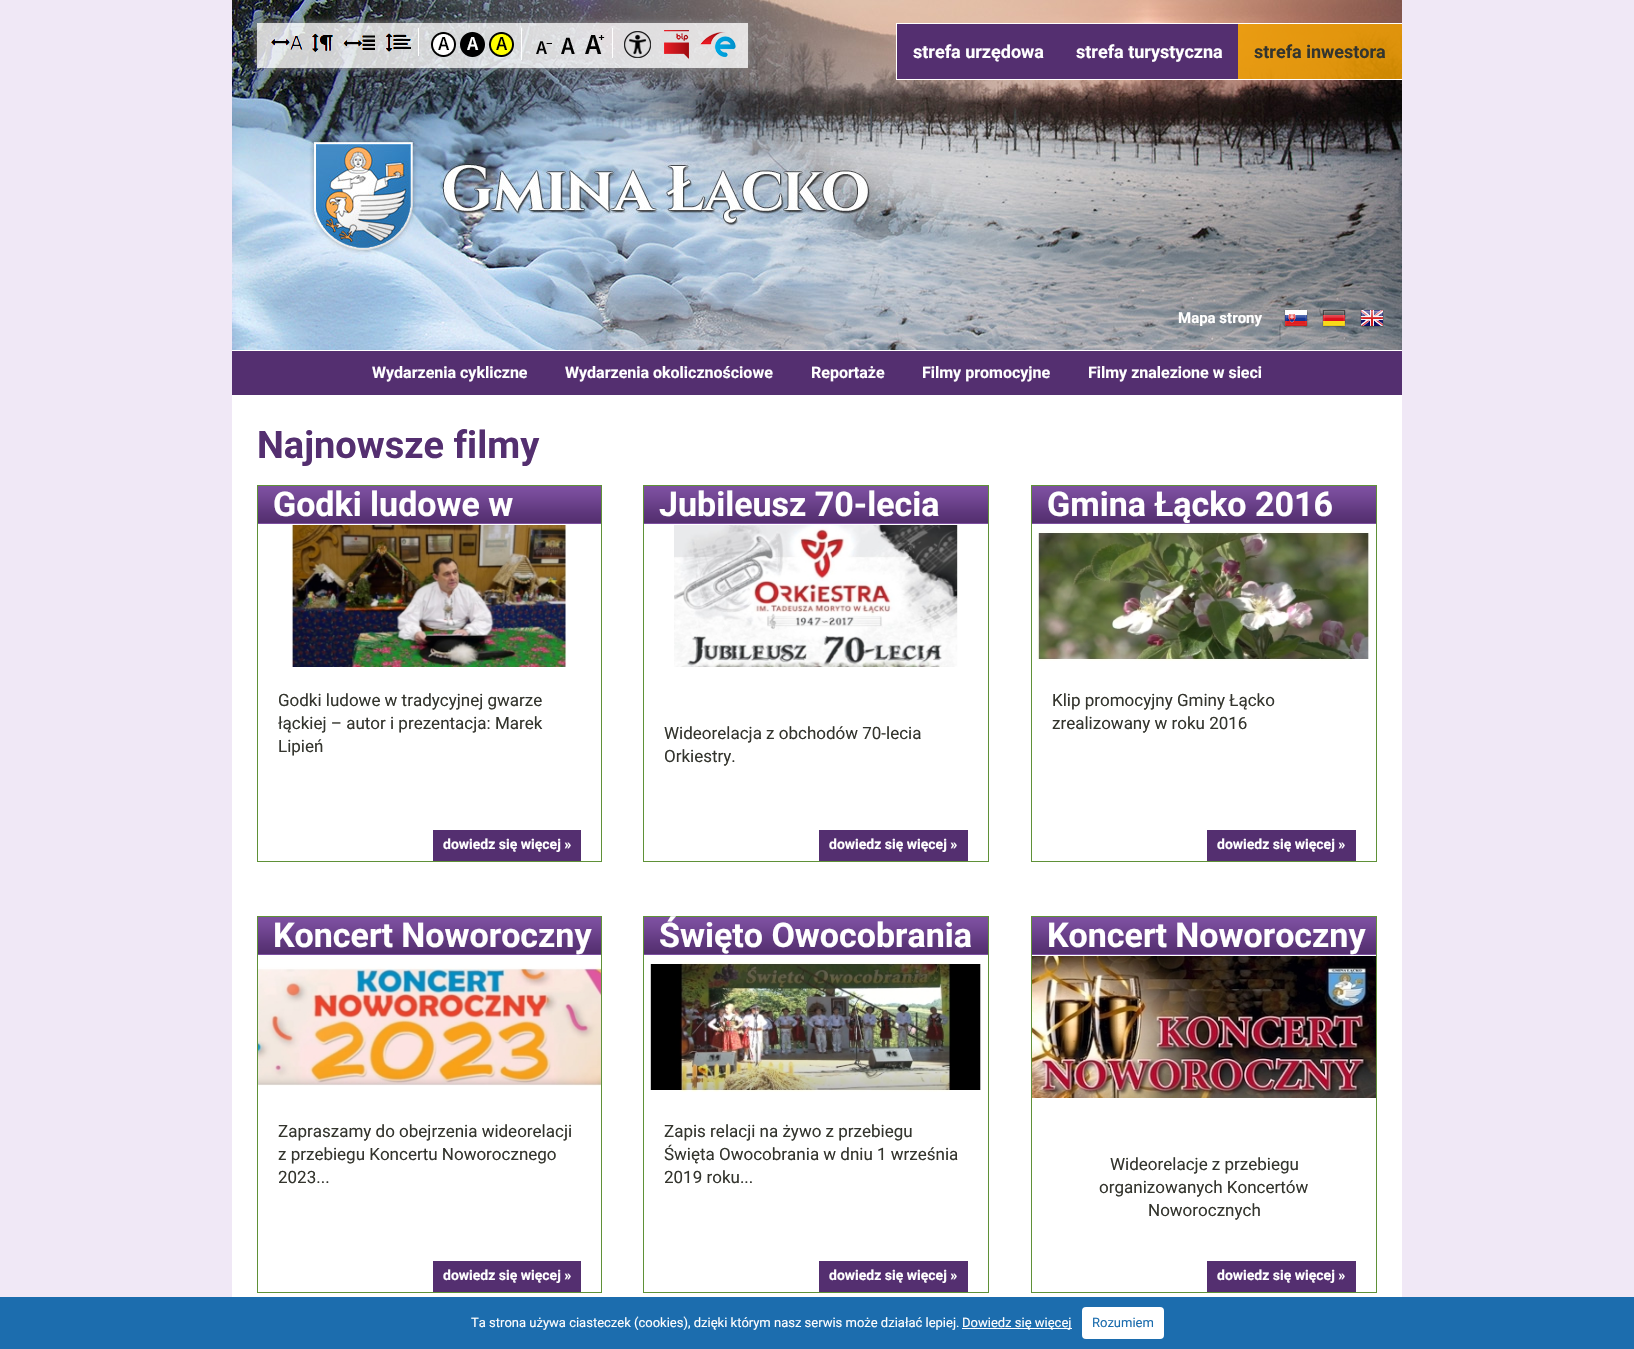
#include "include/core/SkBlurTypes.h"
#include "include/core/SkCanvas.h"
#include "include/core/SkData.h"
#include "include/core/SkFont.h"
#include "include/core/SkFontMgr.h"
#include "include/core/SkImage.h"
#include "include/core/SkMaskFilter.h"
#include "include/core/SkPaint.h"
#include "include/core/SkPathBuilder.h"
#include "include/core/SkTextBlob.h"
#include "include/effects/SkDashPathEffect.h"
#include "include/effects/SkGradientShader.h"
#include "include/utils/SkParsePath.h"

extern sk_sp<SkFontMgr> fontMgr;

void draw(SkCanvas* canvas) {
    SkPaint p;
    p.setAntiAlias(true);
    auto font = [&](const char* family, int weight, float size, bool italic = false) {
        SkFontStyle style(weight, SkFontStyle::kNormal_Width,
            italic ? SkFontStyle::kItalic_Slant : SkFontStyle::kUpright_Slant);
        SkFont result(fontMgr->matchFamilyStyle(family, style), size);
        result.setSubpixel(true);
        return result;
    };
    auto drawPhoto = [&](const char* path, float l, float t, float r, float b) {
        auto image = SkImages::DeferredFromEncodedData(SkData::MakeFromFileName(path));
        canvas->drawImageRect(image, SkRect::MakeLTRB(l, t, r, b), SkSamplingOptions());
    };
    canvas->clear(0xFFF0E8F6);
    p.setColor(0xFFFFFFFF);
    canvas->drawRect(SkRect::MakeLTRB(232, 350, 1402, 1297), p);
    drawPhoto("media/1.png", 232, 0, 1402, 350);
    canvas->save();
    canvas->clipPath(SkPathBuilder(SkPathFillType::kEvenOdd).moveTo(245, 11).lineTo(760, 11).lineTo(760, 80).lineTo(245, 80).close().moveTo(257, 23).lineTo(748, 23).lineTo(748, 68).lineTo(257, 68).close().detach(), true);
    p.setColor(0xFF888888);
    p.setMaskFilter(SkMaskFilter::MakeBlur(kNormal_SkBlurStyle, 3.5f));
    canvas->drawRect(SkRect::MakeLTRB(257, 23, 748, 68), p);
    p.setMaskFilter(nullptr);
    canvas->restore();
    p.setColor(0xCCFFFFFF);
    canvas->drawRect(SkRect::MakeLTRB(257, 23, 748, 68), p);
    p.setColor(0xFFFFFFFF);
    canvas->drawRect(SkRect::MakeLTRB(418, 28, 419, 56), p);
    drawPhoto("media/2.png", 271, 36, 303, 50);
    drawPhoto("media/3.png", 311, 33, 333, 52);
    drawPhoto("media/4.png", 343, 35, 375, 50);
    drawPhoto("media/5.png", 385, 33, 411, 52);
    canvas->drawRect(SkRect::MakeLTRB(521, 28, 522, 60), p);
    drawPhoto("media/6.png", 431, 32, 456, 57);
    drawPhoto("media/7.png", 460, 32, 485, 57);
    drawPhoto("media/8.png", 489, 32, 514, 57);
    canvas->drawRect(SkRect::MakeLTRB(612, 28, 613, 58), p);
    drawPhoto("media/9.png", 536, 41, 552, 54);
    drawPhoto("media/10.png", 561, 37, 575, 54);
    drawPhoto("media/11.png", 585, 35, 605, 54);
    drawPhoto("media/12.png", 624, 31, 651, 58);
    drawPhoto("media/13.png", 664, 30, 689, 59);
    drawPhoto("media/14.png", 700, 32, 736, 57);
    {
        const struct { float l, t, r, b; SkColor color; } items[] = {
            {896, 23, 1402, 24, 0xFFFFFFFF},
            {896, 79, 1402, 80, 0xFFFFFFFF},
            {896, 23, 897, 80, 0xFFFFFFFF},
            {897, 24, 1238, 79, 0xFF542F70},
        };
        for (auto [l, t, r, b, color] : items) {
            p.setColor(color);
            canvas->drawRect(SkRect::MakeLTRB(l, t, r, b), p);
        }
    }
    auto font1 = font("Roboto", 700, 18);
    p.setColor(0xFFFFFFFF);
    canvas->drawString("strefa urzędowa", 913, 58, font1, p);
    canvas->drawString("strefa turystyczna", 1076, 58, font1, p);
    p.setColor(0xD9EF9D00);
    canvas->drawRect(SkRect::MakeLTRB(1238, 24, 1402, 79), p);
    p.setColor(0xFF34352E);
    canvas->drawString("strefa inwestora", 1254, 58, font1, p);
    auto font2 = font("Roboto", 700, 15);
    p.setColor(0xFFFFFFFF);
    canvas->drawString("Mapa strony", 1178, 323, font2, p);
    drawPhoto("media/15.png", 1284, 309, 1308, 328);
    drawPhoto("media/16.png", 1322, 309, 1346, 328);
    drawPhoto("media/17.png", 1360, 309, 1384, 328);
    p.setColor(0xFF542F70);
    canvas->drawRect(SkRect::MakeLTRB(232, 351, 1402, 395), p);
    auto font3 = font("Roboto", 700, 16);
    p.setColor(0xFFFFFFFF);
    {
        const struct { const char* s; float x, y; } items[] = {
            {"Wydarzenia cykliczne", 372, 378},
            {"Wydarzenia okolicznościowe", 565, 378},
            {"Reportaże", 811, 378},
            {"Filmy promocyjne", 922, 378},
            {"Filmy znalezione w sieci", 1088, 378},
        };
        for (auto [s, x, y] : items) {
            canvas->drawString(s, x, y, font3, p);
        }
    }
    auto font4 = font("Roboto", 700, 38);
    p.setColor(0xFF542F70);
    canvas->drawString("Najnowsze filmy", 257, 458, font4, p);
    p.setStyle(SkPaint::kStroke_Style);
    p.setStrokeWidth(1);
    p.setColor(0xFF5F9137);
    canvas->drawRect(SkRect::MakeLTRB(257.5f, 485.5f, 601.5f, 861.5f), p);
    drawPhoto("media/18.png", 258, 486, 601, 524);
    auto font5 = font("Roboto", 700, 34);
    p.setStyle(SkPaint::kFill_Style);
    p.setColor(0xFFFFFFFF);
    canvas->drawString("Godki ludowe w", 273, 516, font5, p);
    drawPhoto("media/19.png", 291, 525, 567, 667);
    auto font6 = font("Roboto", 400, 17);
    p.setColor(0xFF34352E);
    {
        const struct { const char* s; float x, y; } items[] = {
            {"Godki ludowe w tradycyjnej gwarze", 278, 706},
            {"łąckiej – autor i prezentacja: Marek", 278, 729},
            {"Lipień", 278, 752},
        };
        for (auto [s, x, y] : items) {
            canvas->drawString(s, x, y, font6, p);
        }
    }
    p.setColor(0xFF542F70);
    canvas->drawRect(SkRect::MakeLTRB(433, 830, 581, 861), p);
    auto font7 = font("Roboto", 700, 14);
    p.setColor(0xFFFFFFFF);
    canvas->drawString("dowiedz się więcej »", 443, 849, font7, p);
    p.setStyle(SkPaint::kStroke_Style);
    p.setColor(0xFF5F9137);
    canvas->drawRect(SkRect::MakeLTRB(643.5f, 485.5f, 988.5f, 861.5f), p);
    drawPhoto("media/20.png", 644, 486, 988, 524);
    p.setStyle(SkPaint::kFill_Style);
    p.setColor(0xFFFFFFFF);
    canvas->drawString("Jubileusz 70-lecia", 659, 516, font5, p);
    drawPhoto("media/21.png", 674, 525, 958, 667);
    p.setColor(0xFF34352E);
    canvas->drawString("Wideorelacja z obchodów 70-lecia", 664, 739, font6, p);
    canvas->drawString("Orkiestry.", 664, 762, font6, p);
    p.setColor(0xFF542F70);
    canvas->drawRect(SkRect::MakeLTRB(819, 830, 968, 861), p);
    p.setColor(0xFFFFFFFF);
    canvas->drawString("dowiedz się więcej »", 829, 849, font7, p);
    p.setStyle(SkPaint::kStroke_Style);
    p.setColor(0xFF5F9137);
    canvas->drawRect(SkRect::MakeLTRB(1031.5f, 485.5f, 1376.5f, 861.5f), p);
    drawPhoto("media/20.png", 1032, 486, 1376, 524);
    p.setStyle(SkPaint::kFill_Style);
    p.setColor(0xFFFFFFFF);
    canvas->drawString("Gmina Łącko 2016", 1047, 516, font5, p);
    drawPhoto("media/22.png", 1037, 531, 1370, 661);
    p.setColor(0xFF34352E);
    canvas->drawString("Klip promocyjny Gminy Łącko", 1052, 706, font6, p);
    canvas->drawString("zrealizowany w roku 2016", 1052, 729, font6, p);
    p.setColor(0xFF542F70);
    canvas->drawRect(SkRect::MakeLTRB(1207, 830, 1356, 861), p);
    p.setColor(0xFFFFFFFF);
    canvas->drawString("dowiedz się więcej »", 1217, 849, font7, p);
    p.setStyle(SkPaint::kStroke_Style);
    p.setColor(0xFF5F9137);
    canvas->drawRect(SkRect::MakeLTRB(257.5f, 916.5f, 601.5f, 1292.5f), p);
    drawPhoto("media/18.png", 258, 917, 601, 955);
    p.setStyle(SkPaint::kFill_Style);
    p.setColor(0xFFFFFFFF);
    canvas->drawString("Koncert Noworoczny", 273, 947, font5, p);
    drawPhoto("media/23.png", 258, 967, 601, 1086);
    p.setColor(0xFF34352E);
    {
        const struct { const char* s; float x, y; } items[] = {
            {"Zapraszamy do obejrzenia wideorelacji", 278, 1137},
            {"z przebiegu Koncertu Noworocznego", 278, 1160},
            {"2023...", 278, 1183},
        };
        for (auto [s, x, y] : items) {
            canvas->drawString(s, x, y, font6, p);
        }
    }
    p.setColor(0xFF542F70);
    canvas->drawRect(SkRect::MakeLTRB(433, 1261, 581, 1292), p);
    p.setColor(0xFFFFFFFF);
    canvas->drawString("dowiedz się więcej »", 443, 1280, font7, p);
    p.setStyle(SkPaint::kStroke_Style);
    p.setColor(0xFF5F9137);
    canvas->drawRect(SkRect::MakeLTRB(643.5f, 916.5f, 988.5f, 1292.5f), p);
    drawPhoto("media/20.png", 644, 917, 988, 955);
    p.setStyle(SkPaint::kFill_Style);
    p.setColor(0xFFFFFFFF);
    canvas->drawString("Święto Owocobrania", 659, 947, font5, p);
    drawPhoto("media/24.png", 650, 962, 981, 1092);
    p.setColor(0xFF34352E);
    {
        const struct { const char* s; float x, y; } items[] = {
            {"Zapis relacji na żywo z przebiegu", 664, 1137},
            {"Święta Owocobrania w dniu 1 września", 664, 1160},
            {"2019 roku...", 664, 1183},
        };
        for (auto [s, x, y] : items) {
            canvas->drawString(s, x, y, font6, p);
        }
    }
    p.setColor(0xFF542F70);
    canvas->drawRect(SkRect::MakeLTRB(819, 1261, 968, 1292), p);
    p.setColor(0xFFFFFFFF);
    canvas->drawString("dowiedz się więcej »", 829, 1280, font7, p);
    p.setStyle(SkPaint::kStroke_Style);
    p.setColor(0xFF5F9137);
    canvas->drawRect(SkRect::MakeLTRB(1031.5f, 916.5f, 1376.5f, 1292.5f), p);
    drawPhoto("media/20.png", 1032, 917, 1376, 955);
    p.setStyle(SkPaint::kFill_Style);
    p.setColor(0xFFFFFFFF);
    canvas->drawString("Koncert Noworoczny", 1047, 947, font5, p);
    drawPhoto("media/25.png", 1032, 956, 1376, 1098);
    p.setColor(0xFF34352E);
    {
        const struct { const char* s; float x, y; } items[] = {
            {"Wideorelacje z przebiegu", 1110, 1170},
            {"organizowanych Koncertów", 1099, 1193},
            {"Noworocznych", 1148, 1216},
        };
        for (auto [s, x, y] : items) {
            canvas->drawString(s, x, y, font6, p);
        }
    }
    p.setColor(0xFF542F70);
    canvas->drawRect(SkRect::MakeLTRB(1207, 1261, 1356, 1292), p);
    p.setColor(0xFFFFFFFF);
    canvas->drawString("dowiedz się więcej »", 1217, 1280, font7, p);
    p.setColor(0xFF1C6DAE);
    canvas->drawRect(SkRect::MakeLTRB(0, 1297, 1634, 1349), p);
    auto font8 = font("Roboto", 400, 13);
    p.setColor(0xFFFFFFFF);
    canvas->drawString("Ta strona używa ciasteczek (cookies), dzięki którym nasz serwis może działać lepiej.", 471, 1327, font8, p);
    canvas->drawRect(SkRect::MakeLTRB(962, 1328, 1072, 1329), p);
    canvas->drawString("Dowiedz się więcej", 962, 1327, font8, p);
    canvas->drawRoundRect(SkRect::MakeLTRB(1082, 1307, 1164, 1339), 4, 4, p);
    p.setColor(0xFF1C6DAE);
    canvas->drawString("Rozumiem", 1092, 1327, font8, p);
}
